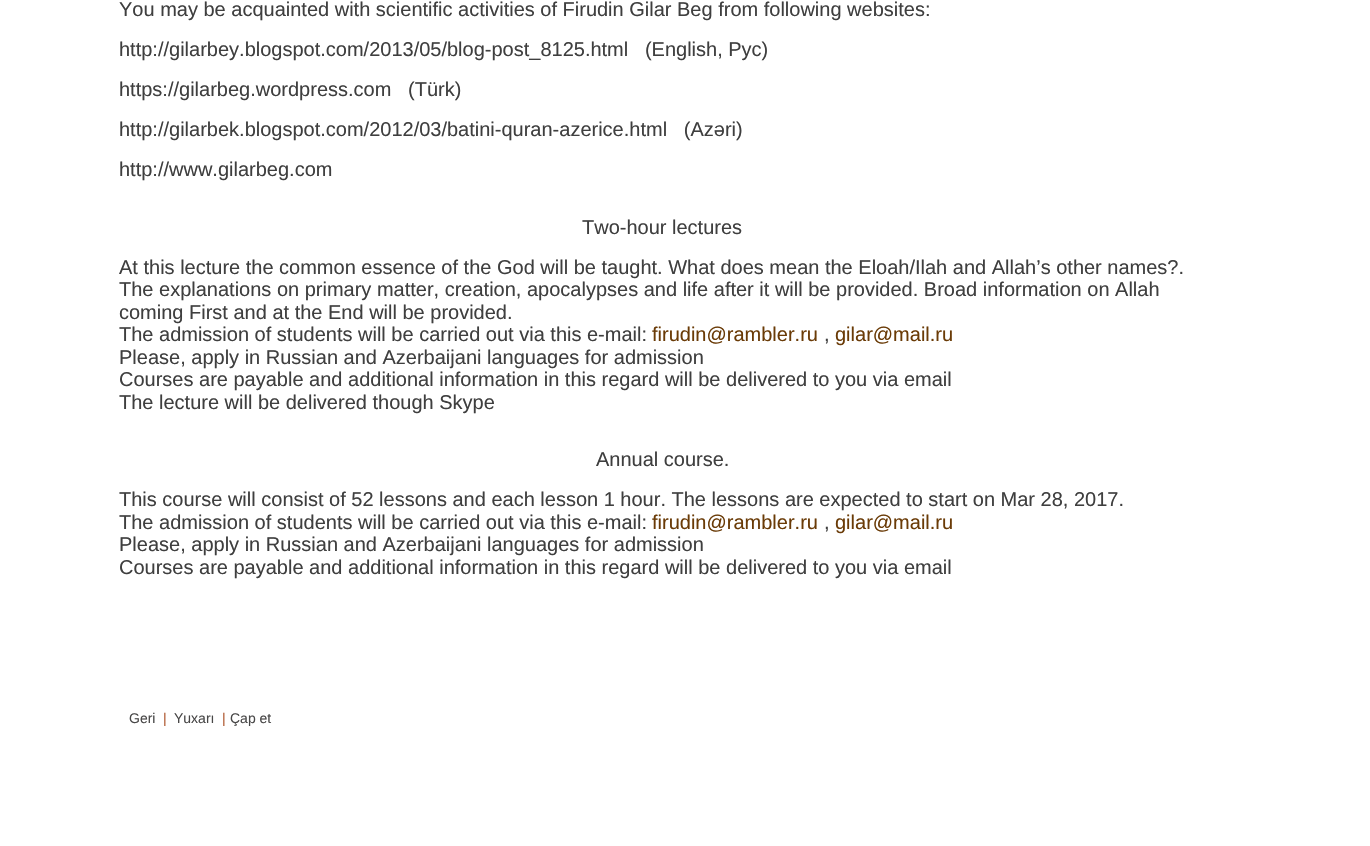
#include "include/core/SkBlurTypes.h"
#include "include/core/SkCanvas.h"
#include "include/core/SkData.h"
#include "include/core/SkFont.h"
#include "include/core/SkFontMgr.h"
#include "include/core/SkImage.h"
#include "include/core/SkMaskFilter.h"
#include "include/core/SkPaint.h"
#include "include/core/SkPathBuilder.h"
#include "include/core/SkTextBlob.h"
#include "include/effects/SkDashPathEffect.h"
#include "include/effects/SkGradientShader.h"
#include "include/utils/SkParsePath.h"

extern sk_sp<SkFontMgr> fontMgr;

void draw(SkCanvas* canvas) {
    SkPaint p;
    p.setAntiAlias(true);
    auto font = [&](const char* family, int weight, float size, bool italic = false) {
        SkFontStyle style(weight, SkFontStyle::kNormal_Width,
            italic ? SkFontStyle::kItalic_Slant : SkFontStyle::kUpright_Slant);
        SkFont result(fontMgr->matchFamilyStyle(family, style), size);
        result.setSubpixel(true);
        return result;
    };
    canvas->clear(0xFFFFFFFF);
    auto font1 = font("Liberation Sans", 400, 20);
    p.setColor(0xFF3F3F3F);
    {
        const struct { const char* s; float x, y; } items[] = {
            {"You may be acquainted with scientific activities of Firudin Gilar Beg from following websites:", 119, 16},
            {"http://gilarbey.blogspot.com/2013/05/blog-post_8125.html   (English, Рус)", 119, 56},
            {"https://gilarbeg.wordpress.com   (Türk)", 119, 96},
            {"http://gilarbek.blogspot.com/2012/03/batini-quran-azerice.html   (Azəri)", 119, 136},
            {"http://www.gilarbeg.com", 119, 176},
            {"Two-hour lectures", 582, 234},
            {"At this lecture the common essence of the God will be taught. What does mean the Eloah/Ilah and Allah’s other names?.", 119, 274},
            {"The explanations on primary matter, creation, apocalypses and life after it will be provided. Broad information on Allah", 119, 296},
            {"coming First and at the End will be provided.", 119, 319},
            {"The admission of students will be carried out via this e-mail:", 119, 341},
        };
        for (auto [s, x, y] : items) {
            canvas->drawString(s, x, y, font1, p);
        }
    }
    p.setColor(0xFF6A3B07);
    canvas->drawString("firudin@rambler.ru", 652, 341, font1, p);
    p.setColor(0xFF3F3F3F);
    canvas->drawString(",", 824, 341, font1, p);
    p.setColor(0xFF6A3B07);
    canvas->drawString("gilar@mail.ru", 835, 341, font1, p);
    p.setColor(0xFF3F3F3F);
    {
        const struct { const char* s; float x, y; } items[] = {
            {"Please, apply in Russian and Azerbaijani languages for admission", 119, 364},
            {"Courses are payable and additional information in this regard will be delivered to you via email", 119, 386},
            {"The lecture will be delivered though Skype", 119, 409},
            {"Annual course.", 596, 466},
            {"This course will consist of 52 lessons and each lesson 1 hour. The lessons are expected to start on Mar 28, 2017.", 119, 506},
            {"The admission of students will be carried out via this e-mail:", 119, 529},
        };
        for (auto [s, x, y] : items) {
            canvas->drawString(s, x, y, font1, p);
        }
    }
    p.setColor(0xFF6A3B07);
    canvas->drawString("firudin@rambler.ru", 652, 529, font1, p);
    p.setColor(0xFF3F3F3F);
    canvas->drawString(",", 824, 529, font1, p);
    p.setColor(0xFF6A3B07);
    canvas->drawString("gilar@mail.ru", 835, 529, font1, p);
    p.setColor(0xFF3F3F3F);
    canvas->drawString("Please, apply in Russian and Azerbaijani languages for admission", 119, 551, font1, p);
    canvas->drawString("Courses are payable and additional information in this regard will be delivered to you via email", 119, 574, font1, p);
    auto font2 = font("Liberation Sans", 400, 14);
    p.setColor(0xFF484747);
    canvas->drawString("Geri", 129, 723, font2, p);
    p.setColor(0xFFB15D35);
    canvas->drawString("|", 163, 723, font2, p);
    p.setColor(0xFF484747);
    canvas->drawString("Yuxarı", 174, 723, font2, p);
    p.setColor(0xFFB15D35);
    canvas->drawString("|", 222, 723, font2, p);
    p.setColor(0xFF484747);
    canvas->drawString("Çap et", 230, 723, font2, p);
}
